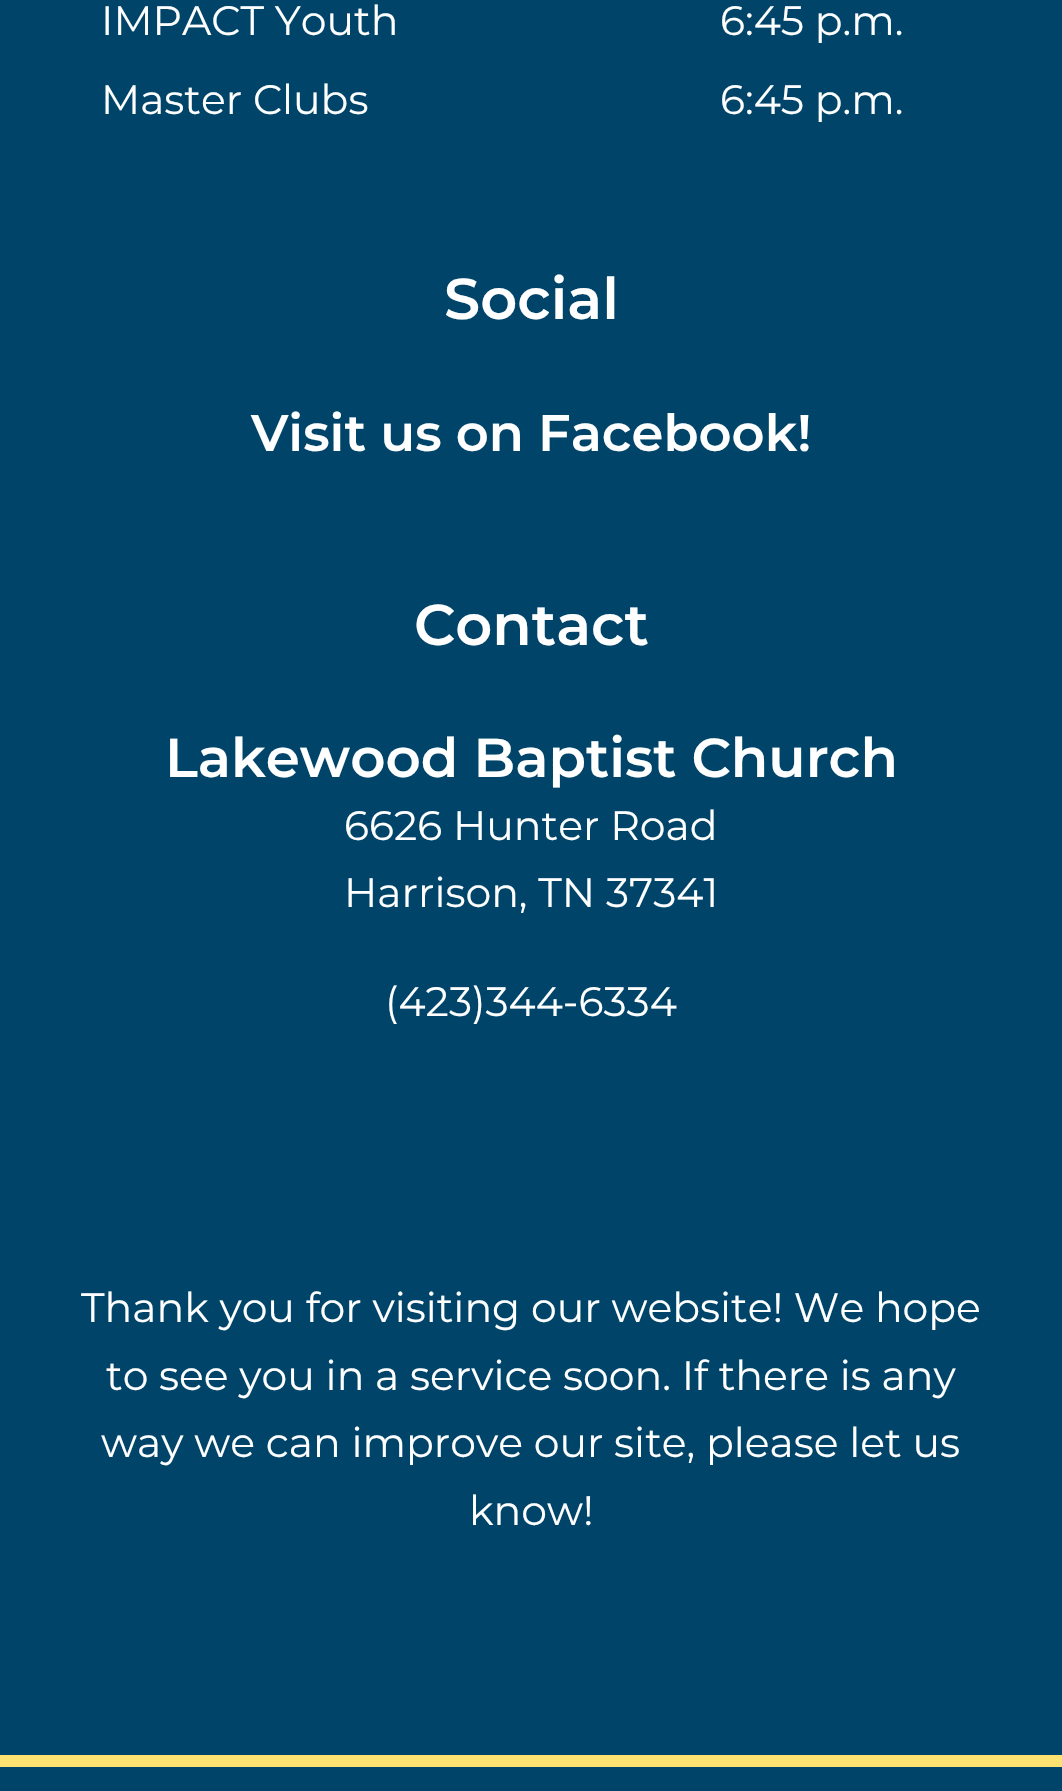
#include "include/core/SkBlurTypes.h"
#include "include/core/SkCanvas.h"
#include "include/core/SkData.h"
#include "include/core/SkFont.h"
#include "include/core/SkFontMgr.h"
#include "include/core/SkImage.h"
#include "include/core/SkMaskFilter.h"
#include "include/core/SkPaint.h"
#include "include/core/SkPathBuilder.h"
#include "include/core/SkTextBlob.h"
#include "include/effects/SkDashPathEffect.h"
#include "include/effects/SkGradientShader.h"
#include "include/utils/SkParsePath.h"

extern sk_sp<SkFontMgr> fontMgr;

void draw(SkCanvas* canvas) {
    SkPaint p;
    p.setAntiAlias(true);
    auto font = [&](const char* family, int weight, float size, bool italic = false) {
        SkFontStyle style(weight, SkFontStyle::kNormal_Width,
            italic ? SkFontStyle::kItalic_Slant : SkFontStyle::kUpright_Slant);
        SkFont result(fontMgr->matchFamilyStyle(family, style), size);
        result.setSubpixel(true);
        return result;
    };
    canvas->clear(0xFF004569);
    auto font1 = font("Montserrat", 400, 41);
    p.setColor(0xFFFFFFFF);
    {
        const struct { const char* s; float x, y; } items[] = {
            {"IMPACT Youth", 101, 35},
            {"6:45 p.m.", 720, 35},
            {"Master Clubs", 101, 114},
            {"6:45 p.m.", 720, 114},
        };
        for (auto [s, x, y] : items) {
            canvas->drawString(s, x, y, font1, p);
        }
    }
    auto font2 = font("Montserrat", 600, 57.5f);
    canvas->drawString("Social", 444, 319, font2, p);
    auto font3 = font("Montserrat", 600, 51.25f);
    canvas->drawString("Visit us on Facebook!", 251, 451, font3, p);
    canvas->drawString("Contact", 414, 645, font2, p);
    auto font4 = font("Montserrat", 600, 54.75f);
    canvas->drawString("Lakewood Baptist Church", 165, 777, font4, p);
    {
        const struct { const char* s; float x, y; } items[] = {
            {"6626 Hunter Road", 344, 840},
            {"Harrison, TN 37341", 344, 907},
            {"(423)344-6334", 385, 1016},
            {"Thank you for visiting our website! We hope", 81, 1322},
            {"to see you in a service soon. If there is any", 106, 1390},
            {"way we can improve our site, please let us", 101, 1457},
            {"know!", 469, 1525},
        };
        for (auto [s, x, y] : items) {
            canvas->drawString(s, x, y, font1, p);
        }
    }
    p.setColor(0xFFFFE372);
    canvas->drawRect(SkRect::MakeLTRB(0, 1755, 1062, 1767), p);
}
